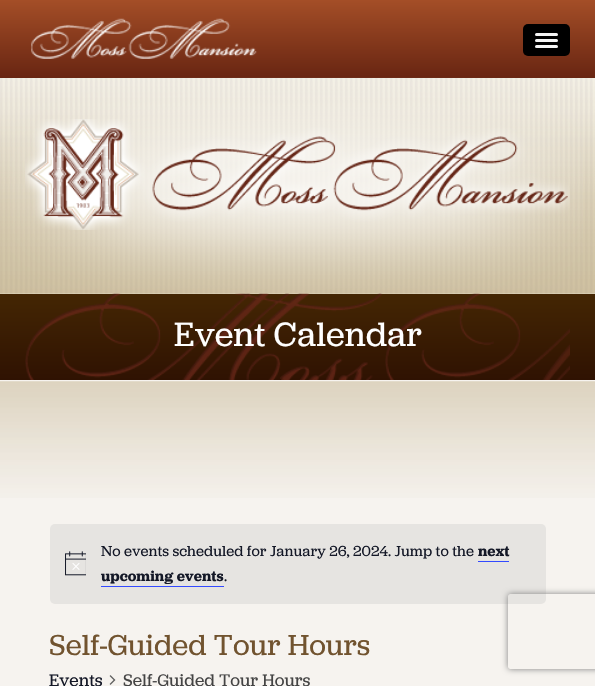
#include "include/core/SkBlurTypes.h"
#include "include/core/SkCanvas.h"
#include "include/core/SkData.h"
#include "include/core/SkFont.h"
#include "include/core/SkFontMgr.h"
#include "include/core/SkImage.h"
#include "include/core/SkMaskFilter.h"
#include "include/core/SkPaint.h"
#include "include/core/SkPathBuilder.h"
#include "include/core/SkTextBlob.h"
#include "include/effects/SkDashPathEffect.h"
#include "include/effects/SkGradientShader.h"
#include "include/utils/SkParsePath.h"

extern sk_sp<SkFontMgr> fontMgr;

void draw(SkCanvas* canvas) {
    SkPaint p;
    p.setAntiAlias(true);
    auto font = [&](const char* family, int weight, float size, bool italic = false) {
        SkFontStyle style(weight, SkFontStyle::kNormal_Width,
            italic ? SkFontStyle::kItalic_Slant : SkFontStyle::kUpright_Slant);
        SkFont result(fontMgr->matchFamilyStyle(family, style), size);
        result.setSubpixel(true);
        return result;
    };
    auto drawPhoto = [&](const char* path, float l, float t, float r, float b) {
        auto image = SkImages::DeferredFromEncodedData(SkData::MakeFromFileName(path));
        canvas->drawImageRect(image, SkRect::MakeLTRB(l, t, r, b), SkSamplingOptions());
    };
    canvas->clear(0xFFF6F3EF);
    p.setColor(0xFFF6F3E9);
    canvas->drawRect(SkRect::MakeLTRB(0, 78, 595, 294), p);
    drawPhoto("media/1.png", 0, 78, 595, 294);
    {
        const SkColor colors[] = {0xFFA44E27, 0xFF682512};
        const float stops[] = {0, 1};
        const SkPoint ends[] = {{298, 0}, {298, 78}};
        p.setShader(SkGradientShader::MakeLinear(ends, colors, stops, 2, SkTileMode::kClamp));
        p.setAlpha(255);
    }
    canvas->drawRect(SkRect::MakeLTRB(0, 0, 595, 78), p);
    drawPhoto("media/2.png", 31, 18, 257, 59);
    p.setShader(nullptr);
    p.setColor(0xFF000000);
    canvas->drawRoundRect(SkRect::MakeLTRB(523, 24, 570, 56), 5, 5, p);
    p.setColor(0xFFF5F5F5);
    canvas->drawRoundRect(SkRect::MakeLTRB(535, 33, 558, 36), 1.5f, 1.5f, p);
    canvas->drawRoundRect(SkRect::MakeLTRB(535, 39, 558, 42), 1.5f, 1.5f, p);
    canvas->drawRoundRect(SkRect::MakeLTRB(535, 45, 558, 48), 1.5f, 1.5f, p);
    drawPhoto("media/3.png", 10, 77, 583, 293);
    drawPhoto("media/4.png", 25, 119, 570, 230);
    {
        const SkColor colors[] = {0xFF442603, 0xFF2F1202};
        const float stops[] = {0, 1};
        const SkPoint ends[] = {{298, 294}, {298, 380}};
        p.setShader(SkGradientShader::MakeLinear(ends, colors, stops, 2, SkTileMode::kClamp));
        p.setAlpha(255);
    }
    canvas->drawRect(SkRect::MakeLTRB(0, 294, 595, 380), p);
    drawPhoto("media/5.png", 25, 293, 570, 380);
    auto font1 = font("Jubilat", 400, 35);
    p.setShader(nullptr);
    p.setColor(0xFFFFFFFF);
    canvas->drawString("Event Calendar", 174, 346, font1, p);
    drawPhoto("media/6.png", 0, 381, 595, 498);
    p.setColor(0xFFE6E4E1);
    canvas->drawRoundRect(SkRect::MakeLTRB(50, 524, 546, 604), 5, 5, p);
    drawPhoto("media/7.png", 65, 551, 86, 576);
    auto font2 = font("Jubilat", 400, 15);
    p.setColor(0xFF141827);
    canvas->drawString("No events scheduled for January 26, 2024. Jump to the", 101, 556, font2, p);
    auto font3 = font("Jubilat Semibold", 600, 15);
    canvas->drawString("next", 478, 556, font3, p);
    p.setColor(0xFF334AFF);
    canvas->drawRect(SkRect::MakeLTRB(478, 561, 509, 562), p);
    p.setColor(0xFF141827);
    canvas->drawString("upcoming events", 101, 581, font3, p);
    p.setColor(0xFF334AFF);
    canvas->drawRect(SkRect::MakeLTRB(101, 586, 224, 587), p);
    p.setColor(0xFF141827);
    canvas->drawString(".", 224, 581, font2, p);
    auto font4 = font("Jubilat", 400, 30);
    p.setColor(0xFF71532F);
    canvas->drawString("Self-Guided Tour Hours", 49, 655, font4, p);
    auto font5 = font("Jubilat", 400, 17.5f);
    p.setColor(0xFF141827);
    canvas->drawString("Events", 49, 686, font5, p);
    drawPhoto("media/8.png", 109, 675, 116, 685);
    p.setColor(0xFF444444);
    canvas->drawString("Self-Guided Tour Hours", 123, 686, font5, p);
    canvas->save();
    canvas->clipPath(SkPathBuilder(SkPathFillType::kEvenOdd).moveTo(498, 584).lineTo(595, 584).lineTo(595, 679).lineTo(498, 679).close().moveTo(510.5f, 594).lineTo(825.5f, 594).cubicTo(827, 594, 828, 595, 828, 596.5f).lineTo(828, 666.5f).cubicTo(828, 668, 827, 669, 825.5f, 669).lineTo(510.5f, 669).cubicTo(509, 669, 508, 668, 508, 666.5f).lineTo(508, 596.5f).cubicTo(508, 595, 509, 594, 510.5f, 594).close().detach(), true);
    p.setColor(0xFF808080);
    p.setMaskFilter(SkMaskFilter::MakeBlur(kNormal_SkBlurStyle, 3));
    canvas->drawRoundRect(SkRect::MakeLTRB(508, 594, 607, 669), 2.5f, 2.5f, p);
    p.setMaskFilter(nullptr);
    canvas->restore();
}
